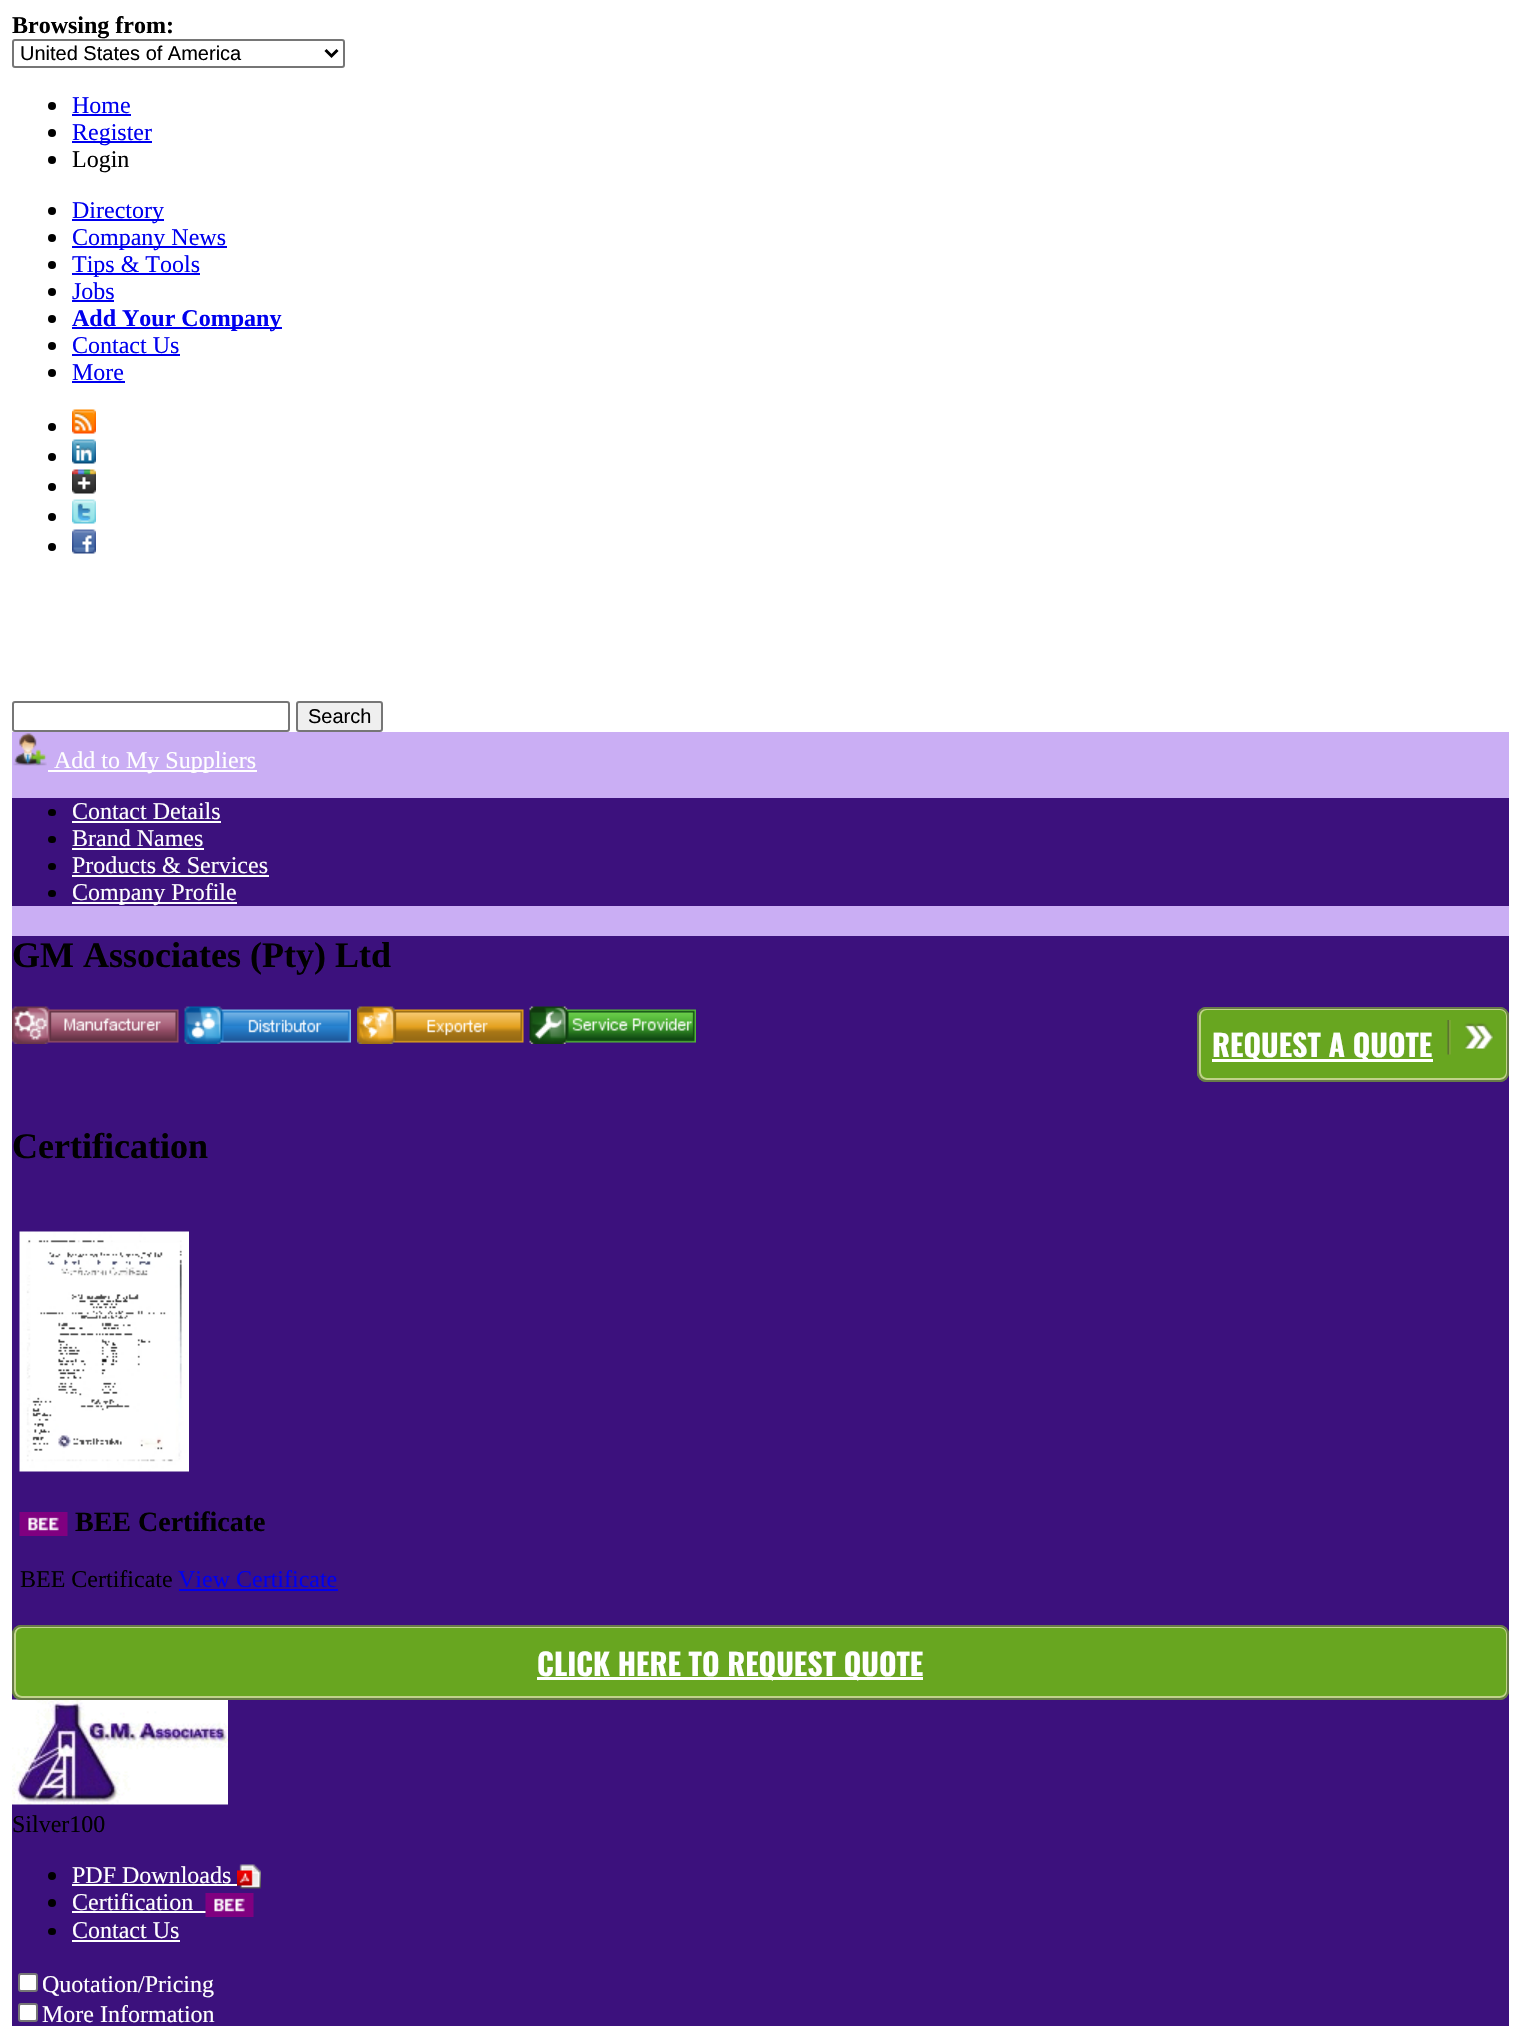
#include "include/core/SkBlurTypes.h"
#include "include/core/SkCanvas.h"
#include "include/core/SkData.h"
#include "include/core/SkFont.h"
#include "include/core/SkFontMgr.h"
#include "include/core/SkImage.h"
#include "include/core/SkMaskFilter.h"
#include "include/core/SkPaint.h"
#include "include/core/SkPathBuilder.h"
#include "include/core/SkTextBlob.h"
#include "include/effects/SkDashPathEffect.h"
#include "include/effects/SkGradientShader.h"
#include "include/utils/SkParsePath.h"

extern sk_sp<SkFontMgr> fontMgr;

void draw(SkCanvas* canvas) {
    SkPaint p;
    p.setAntiAlias(true);
    auto font = [&](const char* family, int weight, float size, bool italic = false) {
        SkFontStyle style(weight, SkFontStyle::kNormal_Width,
            italic ? SkFontStyle::kItalic_Slant : SkFontStyle::kUpright_Slant);
        SkFont result(fontMgr->matchFamilyStyle(family, style), size);
        result.setSubpixel(true);
        return result;
    };
    auto drawPhoto = [&](const char* path, float l, float t, float r, float b) {
        auto image = SkImages::DeferredFromEncodedData(SkData::MakeFromFileName(path));
        canvas->drawImageRect(image, SkRect::MakeLTRB(l, t, r, b), SkSamplingOptions());
    };
    canvas->clear(0xFFFFFFFF);
    auto font1 = font("Liberation Serif", 700, 24);
    p.setColor(0xFF000000);
    canvas->drawString("Browsing from:", 12, 33, font1, p);
    p.setStyle(SkPaint::kStroke_Style);
    p.setStrokeWidth(2);
    p.setColor(0xFF767676);
    canvas->drawRoundRect(SkRect::MakeLTRB(13, 40, 344, 67), 2, 2, p);
    p.setStrokeWidth(3);
    p.setColor(0xFF000000);
    canvas->drawPath(SkPathBuilder().moveTo(325.5f, 50).lineTo(331.5f, 56).lineTo(337.5f, 50).detach(), p);
    auto font2 = font("Liberation Sans", 400, 20);
    p.setStyle(SkPaint::kFill_Style);
    canvas->drawString("United States of America", 20, 60, font2, p);
    canvas->drawCircle(52, 106, 4, p);
    auto font3 = font("Liberation Serif", 400, 24);
    p.setColor(0xFF0000EE);
    canvas->drawString("Home", 72, 113, font3, p);
    canvas->drawRect(SkRect::MakeLTRB(72, 114, 131, 116), p);
    p.setColor(0xFF000000);
    canvas->drawCircle(52, 133, 4, p);
    p.setColor(0xFF0000EE);
    canvas->drawRect(SkRect::MakeLTRB(72, 141, 152, 143), p);
    canvas->drawString("Register", 72, 140, font3, p);
    p.setColor(0xFF000000);
    canvas->drawCircle(52, 160, 4, p);
    canvas->drawString("Login", 72, 167, font3, p);
    canvas->drawCircle(52, 211, 4, p);
    p.setColor(0xFF0000EE);
    canvas->drawRect(SkRect::MakeLTRB(72, 219, 164, 221), p);
    canvas->drawString("Directory", 72, 218, font3, p);
    p.setColor(0xFF000000);
    canvas->drawCircle(52, 238, 4, p);
    p.setColor(0xFF0000EE);
    canvas->drawRect(SkRect::MakeLTRB(72, 246, 227, 248), p);
    canvas->drawString("Company News", 72, 245, font3, p);
    p.setColor(0xFF000000);
    canvas->drawCircle(52, 265, 4, p);
    p.setColor(0xFF0000EE);
    canvas->drawRect(SkRect::MakeLTRB(72, 273, 200, 275), p);
    canvas->drawString("Tips & Tools", 72, 272, font3, p);
    p.setColor(0xFF000000);
    canvas->drawCircle(52, 292, 4, p);
    p.setColor(0xFF0000EE);
    canvas->drawString("Jobs", 72, 299, font3, p);
    canvas->drawRect(SkRect::MakeLTRB(72, 300, 114, 302), p);
    p.setColor(0xFF000000);
    canvas->drawCircle(52, 319, 4, p);
    p.setColor(0xFF0000EE);
    canvas->drawRect(SkRect::MakeLTRB(72, 327, 282, 329), p);
    canvas->drawString("Add Your Company", 72, 326, font1, p);
    p.setColor(0xFF000000);
    canvas->drawCircle(52, 346, 4, p);
    p.setColor(0xFF0000EE);
    canvas->drawString("Contact Us", 72, 353, font3, p);
    canvas->drawRect(SkRect::MakeLTRB(72, 354, 180, 356), p);
    p.setColor(0xFF000000);
    canvas->drawCircle(52, 373, 4, p);
    p.setColor(0xFF0000EE);
    canvas->drawString("More", 72, 380, font3, p);
    canvas->drawRect(SkRect::MakeLTRB(72, 381, 125, 383), p);
    p.setColor(0xFF000000);
    canvas->drawCircle(52, 427, 4, p);
    drawPhoto("media/1.png", 72, 409, 96, 434);
    canvas->drawCircle(52, 457, 4, p);
    drawPhoto("media/2.png", 72, 439, 96, 464);
    canvas->drawCircle(52, 487, 4, p);
    drawPhoto("media/3.png", 72, 469, 96, 494);
    canvas->drawCircle(52, 517, 4, p);
    drawPhoto("media/4.png", 72, 499, 96, 524);
    canvas->drawCircle(52, 547, 4, p);
    drawPhoto("media/5.png", 72, 529, 96, 554);
    p.setStyle(SkPaint::kStroke_Style);
    p.setStrokeWidth(2);
    p.setColor(0xFF767676);
    canvas->drawRoundRect(SkRect::MakeLTRB(13, 702, 289, 731), 2, 2, p);
    p.setStyle(SkPaint::kFill_Style);
    p.setColor(0xFFEFEFEF);
    canvas->drawRoundRect(SkRect::MakeLTRB(297, 702, 382, 731), 2, 2, p);
    p.setStyle(SkPaint::kStroke_Style);
    p.setColor(0xFF767676);
    canvas->drawRoundRect(SkRect::MakeLTRB(297, 702, 382, 731), 2, 2, p);
    p.setStyle(SkPaint::kFill_Style);
    p.setColor(0xFF000000);
    canvas->drawString("Search", 308, 723, font2, p);
    p.setColor(0xFFCAAEF4);
    canvas->drawRect(SkRect::MakeLTRB(12, 732, 1509, 936), p);
    drawPhoto("media/6.png", 13, 733, 47, 766);
    p.setColor(0xFFFFFFFF);
    canvas->drawRect(SkRect::MakeLTRB(48, 770, 257, 772), p);
    canvas->drawString("Add to My Suppliers", 54, 768, font3, p);
    p.setColor(0xFF3C117D);
    canvas->drawRect(SkRect::MakeLTRB(12, 798, 1509, 906), p);
    p.setColor(0xFF000000);
    canvas->drawRoundRect(SkRect::MakeLTRB(48, 809, 56, 816), 3.5f, 3.5f, p);
    p.setColor(0xFFFFFFFF);
    canvas->drawString("Contact Details", 72, 819, font3, p);
    canvas->drawRect(SkRect::MakeLTRB(72, 821, 221, 823), p);
    p.setColor(0xFF000000);
    canvas->drawRoundRect(SkRect::MakeLTRB(48, 836, 56, 843), 3.5f, 3.5f, p);
    p.setColor(0xFFFFFFFF);
    canvas->drawString("Brand Names", 72, 846, font3, p);
    canvas->drawRect(SkRect::MakeLTRB(72, 848, 204, 850), p);
    p.setColor(0xFF000000);
    canvas->drawRoundRect(SkRect::MakeLTRB(48, 863, 56, 870), 3.5f, 3.5f, p);
    p.setColor(0xFFFFFFFF);
    canvas->drawString("Products & Services", 72, 873, font3, p);
    canvas->drawRect(SkRect::MakeLTRB(72, 875, 269, 877), p);
    p.setColor(0xFF000000);
    canvas->drawRoundRect(SkRect::MakeLTRB(48, 890, 56, 897), 3.5f, 3.5f, p);
    p.setColor(0xFFFFFFFF);
    canvas->drawRect(SkRect::MakeLTRB(72, 902, 237, 904), p);
    canvas->drawString("Company Profile", 72, 900, font3, p);
    p.setColor(0xFF3C117D);
    canvas->drawRect(SkRect::MakeLTRB(12, 936, 1509, 2026), p);
    auto font4 = font("Liberation Serif", 700, 36);
    p.setColor(0xFF000000);
    canvas->drawString("GM Associates (Pty) Ltd", 12, 967, font4, p);
    drawPhoto("media/7.png", 12, 1006, 179, 1044);
    drawPhoto("media/8.png", 184, 1006, 351, 1044);
    drawPhoto("media/9.png", 357, 1006, 524, 1044);
    drawPhoto("media/10.png", 529, 1006, 696, 1044);
    p.setColor(0xFF68A620);
    canvas->drawRoundRect(SkRect::MakeLTRB(1197, 1007, 1509, 1082), 9, 9, p);
    p.setStyle(SkPaint::kStroke_Style);
    p.setColor(0xFFC0D28A);
    canvas->drawRoundRect(SkRect::MakeLTRB(1200, 1009, 1507, 1079), 7, 7, p);
    p.setColor(0xFF687B48);
    canvas->drawRoundRect(SkRect::MakeLTRB(1198, 1008, 1508, 1081), 8, 8, p);
    p.setStyle(SkPaint::kFill_Style);
    p.setColor(0xFFFFFFFF);
    canvas->drawRect(SkRect::MakeLTRB(1212, 1059, 1433, 1062), p);
    auto font5 = font("Oswald", 700, 30);
    canvas->drawString("REQUEST A QUOTE", 1212, 1057, font5, p);
    drawPhoto("media/11.png", 1447, 1020, 1494, 1055);
    p.setColor(0xFF000000);
    canvas->drawString("Certification", 12, 1158, font4, p);
    drawPhoto("media/12.png", 19, 1231, 189, 1472);
    drawPhoto("media/13.png", 19, 1512, 68, 1536);
    auto font6 = font("Liberation Serif", 700, 28);
    canvas->drawString("BEE Certificate", 75, 1531, font6, p);
    canvas->drawString("BEE Certificate", 20, 1587, font3, p);
    p.setColor(0xFF0000EE);
    canvas->drawString("View Certificate", 178, 1587, font3, p);
    canvas->drawRect(SkRect::MakeLTRB(179, 1589, 338, 1591), p);
    drawPhoto("media/14.png", 12, 1699, 228, 1805);
    p.setColor(0xFF68A620);
    canvas->drawRoundRect(SkRect::MakeLTRB(12, 1625, 1509, 1700), 9, 9, p);
    p.setStyle(SkPaint::kStroke_Style);
    p.setColor(0xFFC0D28A);
    canvas->drawRoundRect(SkRect::MakeLTRB(15, 1627, 1507, 1697), 7, 7, p);
    p.setColor(0xFF687B48);
    canvas->drawRoundRect(SkRect::MakeLTRB(13, 1626, 1508, 1699), 8, 8, p);
    p.setStyle(SkPaint::kFill_Style);
    p.setColor(0xFFFFFFFF);
    canvas->drawRect(SkRect::MakeLTRB(537, 1677, 923, 1680), p);
    canvas->drawString("CLICK HERE TO REQUEST QUOTE", 537, 1676, font5, p);
    p.setColor(0xFF000000);
    canvas->drawString("Silver100", 12, 1832, font3, p);
    canvas->drawCircle(52, 1876, 4, p);
    p.setColor(0xFFFFFFFF);
    canvas->drawString("PDF Downloads", 72, 1883, font3, p);
    canvas->drawRect(SkRect::MakeLTRB(72, 1884, 237, 1886), p);
    drawPhoto("media/15.png", 237, 1864, 261, 1889);
    p.setColor(0xFF000000);
    canvas->drawCircle(52, 1903, 4, p);
    p.setColor(0xFFFFFFFF);
    canvas->drawString("Certification", 72, 1910, font3, p);
    canvas->drawRect(SkRect::MakeLTRB(72, 1911, 206, 1913), p);
    drawPhoto("media/16.png", 205, 1893, 254, 1917);
    p.setColor(0xFF000000);
    canvas->drawRoundRect(SkRect::MakeLTRB(48, 1928, 56, 1935), 3.5f, 3.5f, p);
    p.setColor(0xFFFFFFFF);
    canvas->drawString("Contact Us", 72, 1938, font3, p);
    canvas->drawRect(SkRect::MakeLTRB(72, 1940, 180, 1942), p);
    canvas->drawRoundRect(SkRect::MakeLTRB(19, 1974, 37, 1991), 2, 2, p);
    p.setStyle(SkPaint::kStroke_Style);
    p.setColor(0xFF767676);
    canvas->drawRoundRect(SkRect::MakeLTRB(19, 1974, 37, 1991), 2, 2, p);
    p.setStyle(SkPaint::kFill_Style);
    p.setColor(0xFFFFFFFF);
    canvas->drawString("Quotation/Pricing", 42, 1992, font3, p);
    canvas->drawRoundRect(SkRect::MakeLTRB(19, 2004, 37, 2021), 2, 2, p);
    p.setStyle(SkPaint::kStroke_Style);
    p.setColor(0xFF767676);
    canvas->drawRoundRect(SkRect::MakeLTRB(19, 2004, 37, 2021), 2, 2, p);
    p.setStyle(SkPaint::kFill_Style);
    p.setColor(0xFFFFFFFF);
    canvas->drawString("More Information", 42, 2022, font3, p);
}
